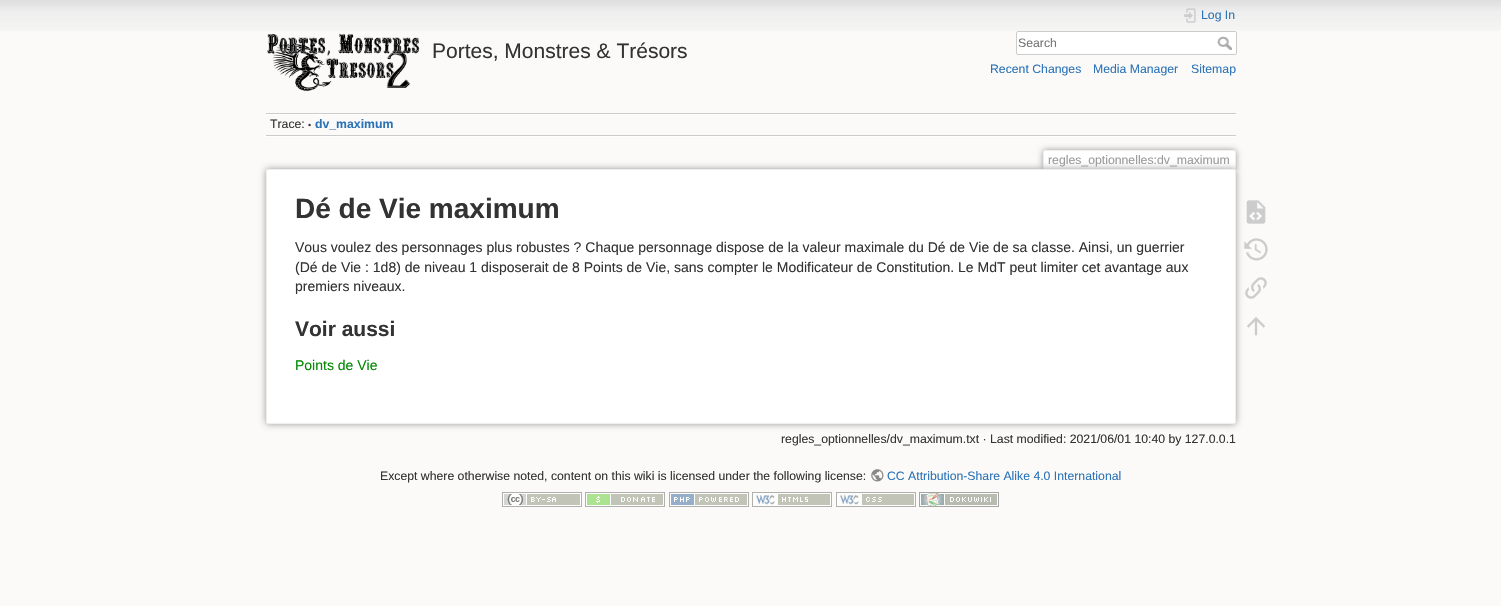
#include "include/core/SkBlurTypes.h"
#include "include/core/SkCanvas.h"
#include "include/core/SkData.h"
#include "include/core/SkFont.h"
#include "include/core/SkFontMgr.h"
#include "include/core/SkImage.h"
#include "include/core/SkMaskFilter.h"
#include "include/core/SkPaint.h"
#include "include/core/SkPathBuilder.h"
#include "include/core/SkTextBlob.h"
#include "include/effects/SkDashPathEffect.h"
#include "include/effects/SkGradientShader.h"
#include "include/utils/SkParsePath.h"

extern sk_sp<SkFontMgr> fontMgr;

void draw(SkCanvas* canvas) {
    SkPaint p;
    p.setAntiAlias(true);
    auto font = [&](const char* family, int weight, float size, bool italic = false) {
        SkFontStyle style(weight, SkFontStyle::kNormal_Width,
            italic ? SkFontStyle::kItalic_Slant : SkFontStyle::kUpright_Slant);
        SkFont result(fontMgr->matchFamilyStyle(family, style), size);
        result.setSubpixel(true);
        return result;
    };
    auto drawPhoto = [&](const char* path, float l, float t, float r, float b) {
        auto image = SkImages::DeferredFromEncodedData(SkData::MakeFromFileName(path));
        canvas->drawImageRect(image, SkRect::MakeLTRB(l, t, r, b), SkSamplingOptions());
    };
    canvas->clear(0xFFFBFAF9);
    drawPhoto("media/1.png", 0, 0, 1501, 31);
    drawPhoto("media/2.png", 267, 33, 420, 92);
    auto font1 = font("Liberation Sans", 400, 21);
    p.setColor(0xFF333333);
    canvas->drawString("Portes, Monstres & Trésors", 432, 58, font1, p);
    drawPhoto("media/3.png", 1184, 8, 1196, 23);
    auto font2 = font("Liberation Sans", 400, 12.25f);
    p.setColor(0xFF2B73B7);
    canvas->drawString("Log In", 1201, 19, font2, p);
    p.setColor(0xFFFFFFFF);
    canvas->drawRoundRect(SkRect::MakeLTRB(1016.5f, 31.5f, 1236.5f, 54.5f), 1.5f, 1.5f, p);
    p.setStyle(SkPaint::kStroke_Style);
    p.setStrokeWidth(1);
    p.setColor(0xFFCCCCCC);
    canvas->drawRoundRect(SkRect::MakeLTRB(1016.5f, 31.5f, 1236.5f, 54.5f), 1.5f, 1.5f, p);
    p.setStyle(SkPaint::kFill_Style);
    p.setColor(0xFF757575);
    canvas->drawString("Search", 1018, 47, font2, p);
    drawPhoto("media/4.png", 1217, 36, 1232, 50);
    p.setColor(0xFF2B73B7);
    {
        const struct { const char* s; float x, y; } items[] = {
            {"Recent Changes", 990, 73},
            {"Media Manager", 1093, 73},
            {"Sitemap", 1191, 73},
        };
        for (auto [s, x, y] : items) {
            canvas->drawString(s, x, y, font2, p);
        }
    }
    {
        const struct { float l, t, r, b; SkColor color; } items[] = {
            {266, 113, 1236, 114, 0xFFCCCCCC},
            {266, 136, 1236, 137, 0xFFFFFFFF},
            {266, 114, 1236, 115, 0xFFFFFFFF},
            {266, 135, 1236, 136, 0xFFCCCCCC},
        };
        for (auto [l, t, r, b, color] : items) {
            p.setColor(color);
            canvas->drawRect(SkRect::MakeLTRB(l, t, r, b), p);
        }
    }
    p.setColor(0xFF333333);
    canvas->drawString("Trace:", 270, 128, font2, p);
    auto font3 = font("Liberation Sans", 400, 9);
    canvas->drawString("•", 308, 128, font3, p);
    auto font4 = font("Liberation Sans", 700, 12.25f);
    p.setColor(0xFF2B73B7);
    canvas->drawString("dv_maximum", 315, 128, font4, p);
    canvas->save();
    canvas->clipRect(SkRect::MakeLTRB(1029, 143, 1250, 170));
    p.setColor(0xFF999999);
    p.setMaskFilter(SkMaskFilter::MakeBlur(kNormal_SkBlurStyle, 3));
    canvas->drawRoundRect(SkRect::MakeLTRB(1043, 150, 1236, 170), 2, 2, p);
    p.setMaskFilter(nullptr);
    canvas->restore();
    p.setColor(0xFFFFFFFF);
    canvas->drawPath(SkPathBuilder().moveTo(1045, 151).lineTo(1234, 151).cubicTo(1234.5f, 151, 1235, 151.5f, 1235, 152).lineTo(1235, 170).lineTo(1044, 170).lineTo(1044, 152).cubicTo(1044, 151.5f, 1044.5f, 151, 1045, 151).close().detach(), p);
    {
        const struct { float l, t, r, b; SkColor color; } items[] = {
            {1044, 150, 1235, 151, 0xFFEEEEEE},
            {1235, 151, 1236, 170, 0xFFEEEEEE},
            {1043, 151, 1044, 170, 0xFFEEEEEE},
        };
        for (auto [l, t, r, b, color] : items) {
            p.setColor(color);
            canvas->drawRect(SkRect::MakeLTRB(l, t, r, b), p);
        }
    }
    p.setColor(0xFF999999);
    canvas->drawString("regles_optionnelles:dv_maximum", 1048, 164, font2, p);
    p.setMaskFilter(SkMaskFilter::MakeBlur(kNormal_SkBlurStyle, 3.5f));
    canvas->drawRoundRect(SkRect::MakeLTRB(266, 169, 1236, 424), 2, 2, p);
    p.setMaskFilter(nullptr);
    p.setColor(0xFFFFFFFF);
    canvas->drawRoundRect(SkRect::MakeLTRB(266.5f, 169.5f, 1235.5f, 423.5f), 1.5f, 1.5f, p);
    p.setStyle(SkPaint::kStroke_Style);
    p.setColor(0xFFEEEEEE);
    canvas->drawRoundRect(SkRect::MakeLTRB(266.5f, 169.5f, 1235.5f, 423.5f), 1.5f, 1.5f, p);
    auto font5 = font("Liberation Sans", 700, 28);
    p.setStyle(SkPaint::kFill_Style);
    p.setColor(0xFF333333);
    canvas->drawString("Dé de Vie maximum", 295, 218, font5, p);
    auto font6 = font("Liberation Sans", 400, 14);
    {
        const struct { const char* s; float x, y; } items[] = {
            {"Vous voulez des personnages plus robustes ? Chaque personnage dispose de la valeur maximale du Dé de Vie de sa classe. Ainsi, un guerrier", 295, 252},
            {"(Dé de Vie : 1d8) de niveau 1 disposerait de 8 Points de Vie, sans compter le Modificateur de Constitution. Le MdT peut limiter cet avantage aux", 295, 272},
            {"premiers niveaux.", 295, 291},
        };
        for (auto [s, x, y] : items) {
            canvas->drawString(s, x, y, font6, p);
        }
    }
    auto font7 = font("Liberation Sans", 700, 21);
    canvas->drawString("Voir aussi", 295, 336, font7, p);
    p.setColor(0xFF008800);
    canvas->drawString("Points de Vie", 295, 370, font6, p);
    p.setColor(0xFF333333);
    canvas->drawString("regles_optionnelles/dv_maximum.txt · Last modified: 2021/06/01 10:40 by 127.0.0.1", 781, 443, font2, p);
    drawPhoto("media/5.png", 1246, 200, 1266, 224);
    drawPhoto("media/6.png", 1244, 238, 1268, 261);
    drawPhoto("media/7.png", 1245, 277, 1267, 299);
    drawPhoto("media/8.png", 1247, 317, 1265, 336);
    canvas->drawString("Except where otherwise noted, content on this wiki is licensed under the following license:", 380, 480, font2, p);
    drawPhoto("media/9.png", 871, 469, 884, 482);
    p.setColor(0xFF2B73B7);
    canvas->drawString("CC Attribution-Share Alike 4.0 International", 887, 480, font2, p);
    drawPhoto("media/10.png", 502, 492, 582, 507);
    drawPhoto("media/11.png", 585, 492, 665, 507);
    drawPhoto("media/12.png", 669, 492, 749, 507);
    drawPhoto("media/13.png", 752, 492, 832, 507);
    drawPhoto("media/14.png", 836, 492, 916, 507);
    drawPhoto("media/15.png", 919, 492, 999, 507);
}
